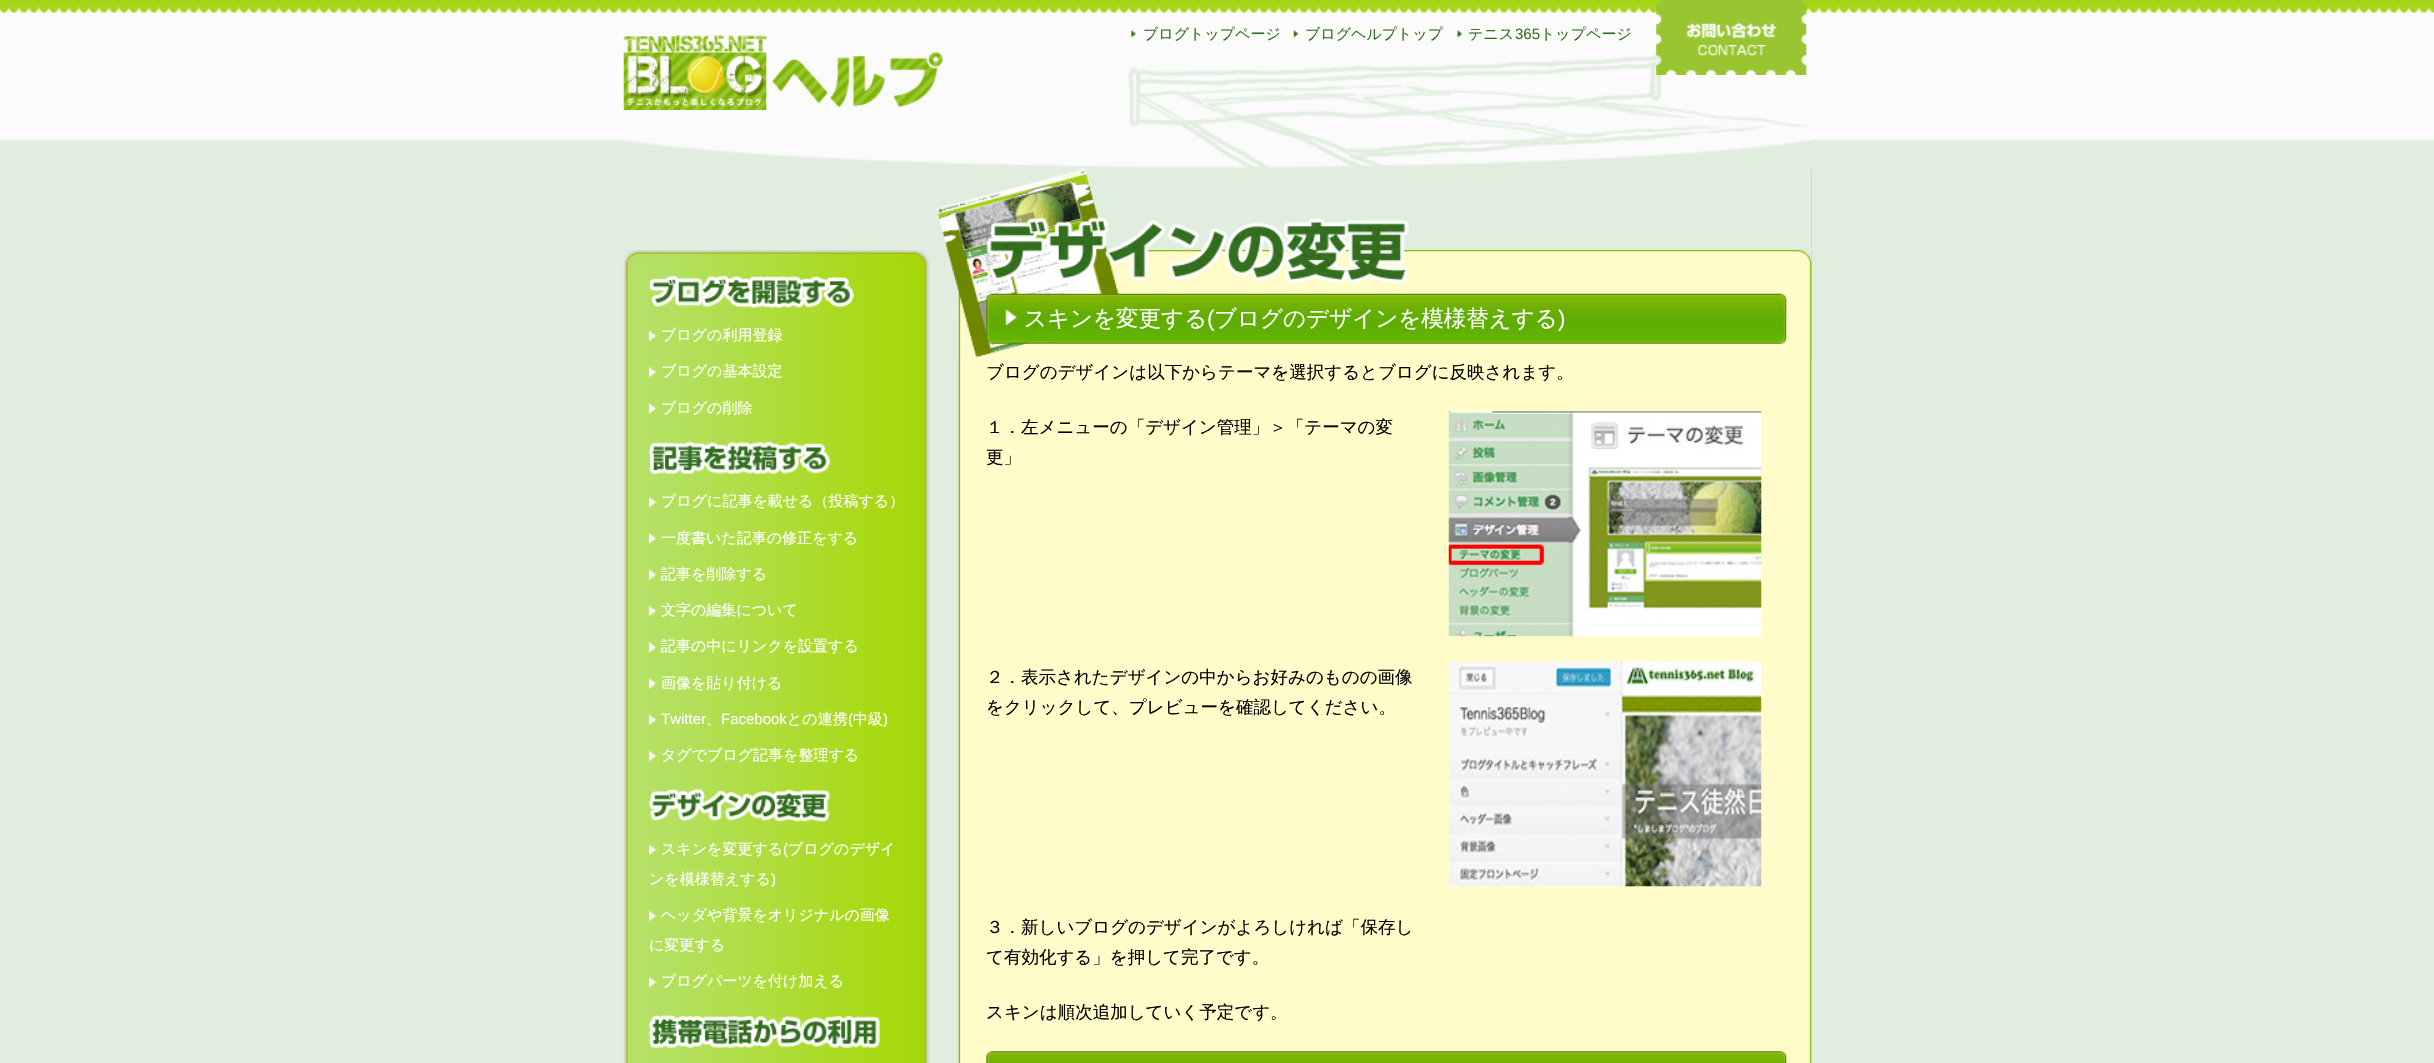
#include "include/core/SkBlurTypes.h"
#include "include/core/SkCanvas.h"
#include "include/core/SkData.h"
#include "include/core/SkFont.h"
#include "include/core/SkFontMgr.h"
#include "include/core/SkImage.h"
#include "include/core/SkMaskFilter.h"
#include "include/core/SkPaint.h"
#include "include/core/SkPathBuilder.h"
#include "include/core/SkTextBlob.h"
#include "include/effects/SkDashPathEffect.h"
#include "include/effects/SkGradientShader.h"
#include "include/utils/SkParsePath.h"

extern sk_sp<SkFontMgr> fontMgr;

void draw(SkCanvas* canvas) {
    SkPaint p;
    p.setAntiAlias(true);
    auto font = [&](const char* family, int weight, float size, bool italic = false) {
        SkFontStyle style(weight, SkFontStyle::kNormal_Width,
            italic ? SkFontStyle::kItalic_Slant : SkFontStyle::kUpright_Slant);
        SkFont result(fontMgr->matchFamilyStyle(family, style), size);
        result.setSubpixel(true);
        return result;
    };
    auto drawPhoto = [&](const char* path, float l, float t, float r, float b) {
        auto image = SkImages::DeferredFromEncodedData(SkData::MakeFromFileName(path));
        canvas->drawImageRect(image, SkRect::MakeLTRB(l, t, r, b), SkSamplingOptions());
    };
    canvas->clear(0xFFE1EEDF);
    drawPhoto("media/1.png", 0, 0, 2434, 140);
    drawPhoto("media/2.png", 624, 53, 1811, 168);
    drawPhoto("media/3.png", 1131, 30, 1137, 38);
    auto font1 = font("WenQuanYi Zen Hei", 500, 15);
    p.setColor(0xFF34701F);
    canvas->drawString("ブログトップページ", 1143, 39, font1, p);
    drawPhoto("media/4.png", 1293, 30, 1299, 38);
    canvas->drawString("ブログヘルプトップ", 1305, 39, font1, p);
    drawPhoto("media/5.png", 1457, 30, 1463, 38);
    canvas->drawString("テニス", 1468, 39, font1, p);
    auto font2 = font("Liberation Sans", 400, 15);
    canvas->drawString("365", 1515, 39, font2, p);
    canvas->drawString("トップページ", 1540, 39, font1, p);
    drawPhoto("media/6.png", 1656, 0, 1807, 75);
    drawPhoto("media/7.png", 623, 35, 943, 110);
    drawPhoto("media/8.png", 623, 250, 930, 275);
    drawPhoto("media/9.png", 623, 275, 930, 1063);
    drawPhoto("media/10.png", 648, 275, 854, 308);
    drawPhoto("media/11.png", 648, 330, 657, 342);
    p.setColor(0xFFFFFFFF);
    canvas->drawString("ブログの利用登録", 661, 340, font1, p);
    drawPhoto("media/12.png", 648, 366, 657, 378);
    canvas->drawString("ブログの基本設定", 661, 376, font1, p);
    drawPhoto("media/13.png", 648, 402, 657, 414);
    canvas->drawString("ブログの削除", 661, 413, font1, p);
    drawPhoto("media/14.png", 648, 441, 830, 474);
    drawPhoto("media/12.png", 648, 496, 657, 508);
    canvas->drawString("ブログに記事を載せる（投稿する）", 661, 506, font1, p);
    drawPhoto("media/13.png", 648, 532, 657, 544);
    canvas->drawString("一度書いた記事の修正をする", 661, 543, font1, p);
    drawPhoto("media/15.png", 648, 568, 657, 580);
    canvas->drawString("記事を削除する", 661, 579, font1, p);
    drawPhoto("media/11.png", 648, 605, 657, 617);
    canvas->drawString("文字の編集について", 661, 615, font1, p);
    drawPhoto("media/12.png", 648, 641, 657, 653);
    canvas->drawString("記事の中にリンクを設置する", 661, 651, font1, p);
    drawPhoto("media/13.png", 648, 677, 657, 689);
    canvas->drawString("画像を貼り付ける", 661, 688, font1, p);
    drawPhoto("media/15.png", 648, 713, 657, 725);
    canvas->drawString("Twitter", 661, 724, font2, p);
    canvas->drawString("、", 706, 724, font1, p);
    canvas->drawString("Facebook", 721, 724, font2, p);
    canvas->drawString("との連携", 787, 724, font1, p);
    canvas->drawString("(", 848, 724, font2, p);
    canvas->drawString("中級", 853, 724, font1, p);
    canvas->drawString(")", 883, 724, font2, p);
    drawPhoto("media/11.png", 648, 750, 657, 762);
    canvas->drawString("タグでブログ記事を整理する", 661, 760, font1, p);
    drawPhoto("media/16.png", 648, 788, 830, 822);
    drawPhoto("media/17.png", 649, 843, 657, 855);
    canvas->drawString("スキンを変更する", 661, 854, font1, p);
    canvas->drawString("(", 783, 854, font2, p);
    canvas->drawString("ブログのデザイ", 788, 854, font1, p);
    canvas->drawString("ンを模様替えする", 649, 884, font1, p);
    canvas->drawString(")", 771, 884, font2, p);
    drawPhoto("media/18.png", 649, 910, 657, 922);
    canvas->drawString("ヘッダや背景をオリジナルの画像", 661, 920, font1, p);
    canvas->drawString("に変更する", 649, 950, font1, p);
    drawPhoto("media/12.png", 648, 976, 657, 988);
    canvas->drawString("ブログパーツを付け加える", 661, 986, font1, p);
    drawPhoto("media/19.png", 648, 1015, 880, 1048);
    drawPhoto("media/20.png", 958, 168, 1812, 1063);
    drawPhoto("media/21.png", 936, 168, 1812, 360);
    drawPhoto("media/22.png", 986, 293, 1787, 344);
    auto font3 = font("WenQuanYi Zen Hei", 500, 22.5f);
    canvas->drawString("スキンを変更する", 1024, 326, font3, p);
    auto font4 = font("Liberation Sans", 400, 22.5f);
    canvas->drawString("(", 1207, 326, font4, p);
    canvas->drawString("ブログのデザインを模様替えする", 1214, 326, font3, p);
    canvas->drawString(")", 1558, 326, font4, p);
    auto font5 = font("WenQuanYi Zen Hei", 500, 17.5f);
    p.setColor(0xFF000000);
    {
        const struct { const char* s; float x, y; } items[] = {
            {"ブログのデザインは以下からテーマを選択するとブログに反映されます。", 986, 378},
            {"１．左メニューの「デザイン管理」＞「テーマの変", 986, 433},
            {"更」", 986, 463},
        };
        for (auto [s, x, y] : items) {
            canvas->drawString(s, x, y, font5, p);
        }
    }
    drawPhoto("media/23.png", 1448, 411, 1762, 637);
    canvas->drawString("２．表示されたデザインの中からお好みのものの画像", 986, 683, font5, p);
    canvas->drawString("をクリックして、プレビューを確認してください。", 986, 713, font5, p);
    drawPhoto("media/24.png", 1448, 661, 1762, 887);
    {
        const struct { const char* s; float x, y; } items[] = {
            {"３．新しいブログのデザインがよろしければ「保存し", 986, 933},
            {"て有効化する」を押して完了です。", 986, 963},
            {"スキンは順次追加していく予定です。", 986, 1018},
        };
        for (auto [s, x, y] : items) {
            canvas->drawString(s, x, y, font5, p);
        }
    }
    drawPhoto("media/25.png", 986, 1051, 1787, 1063);
}
